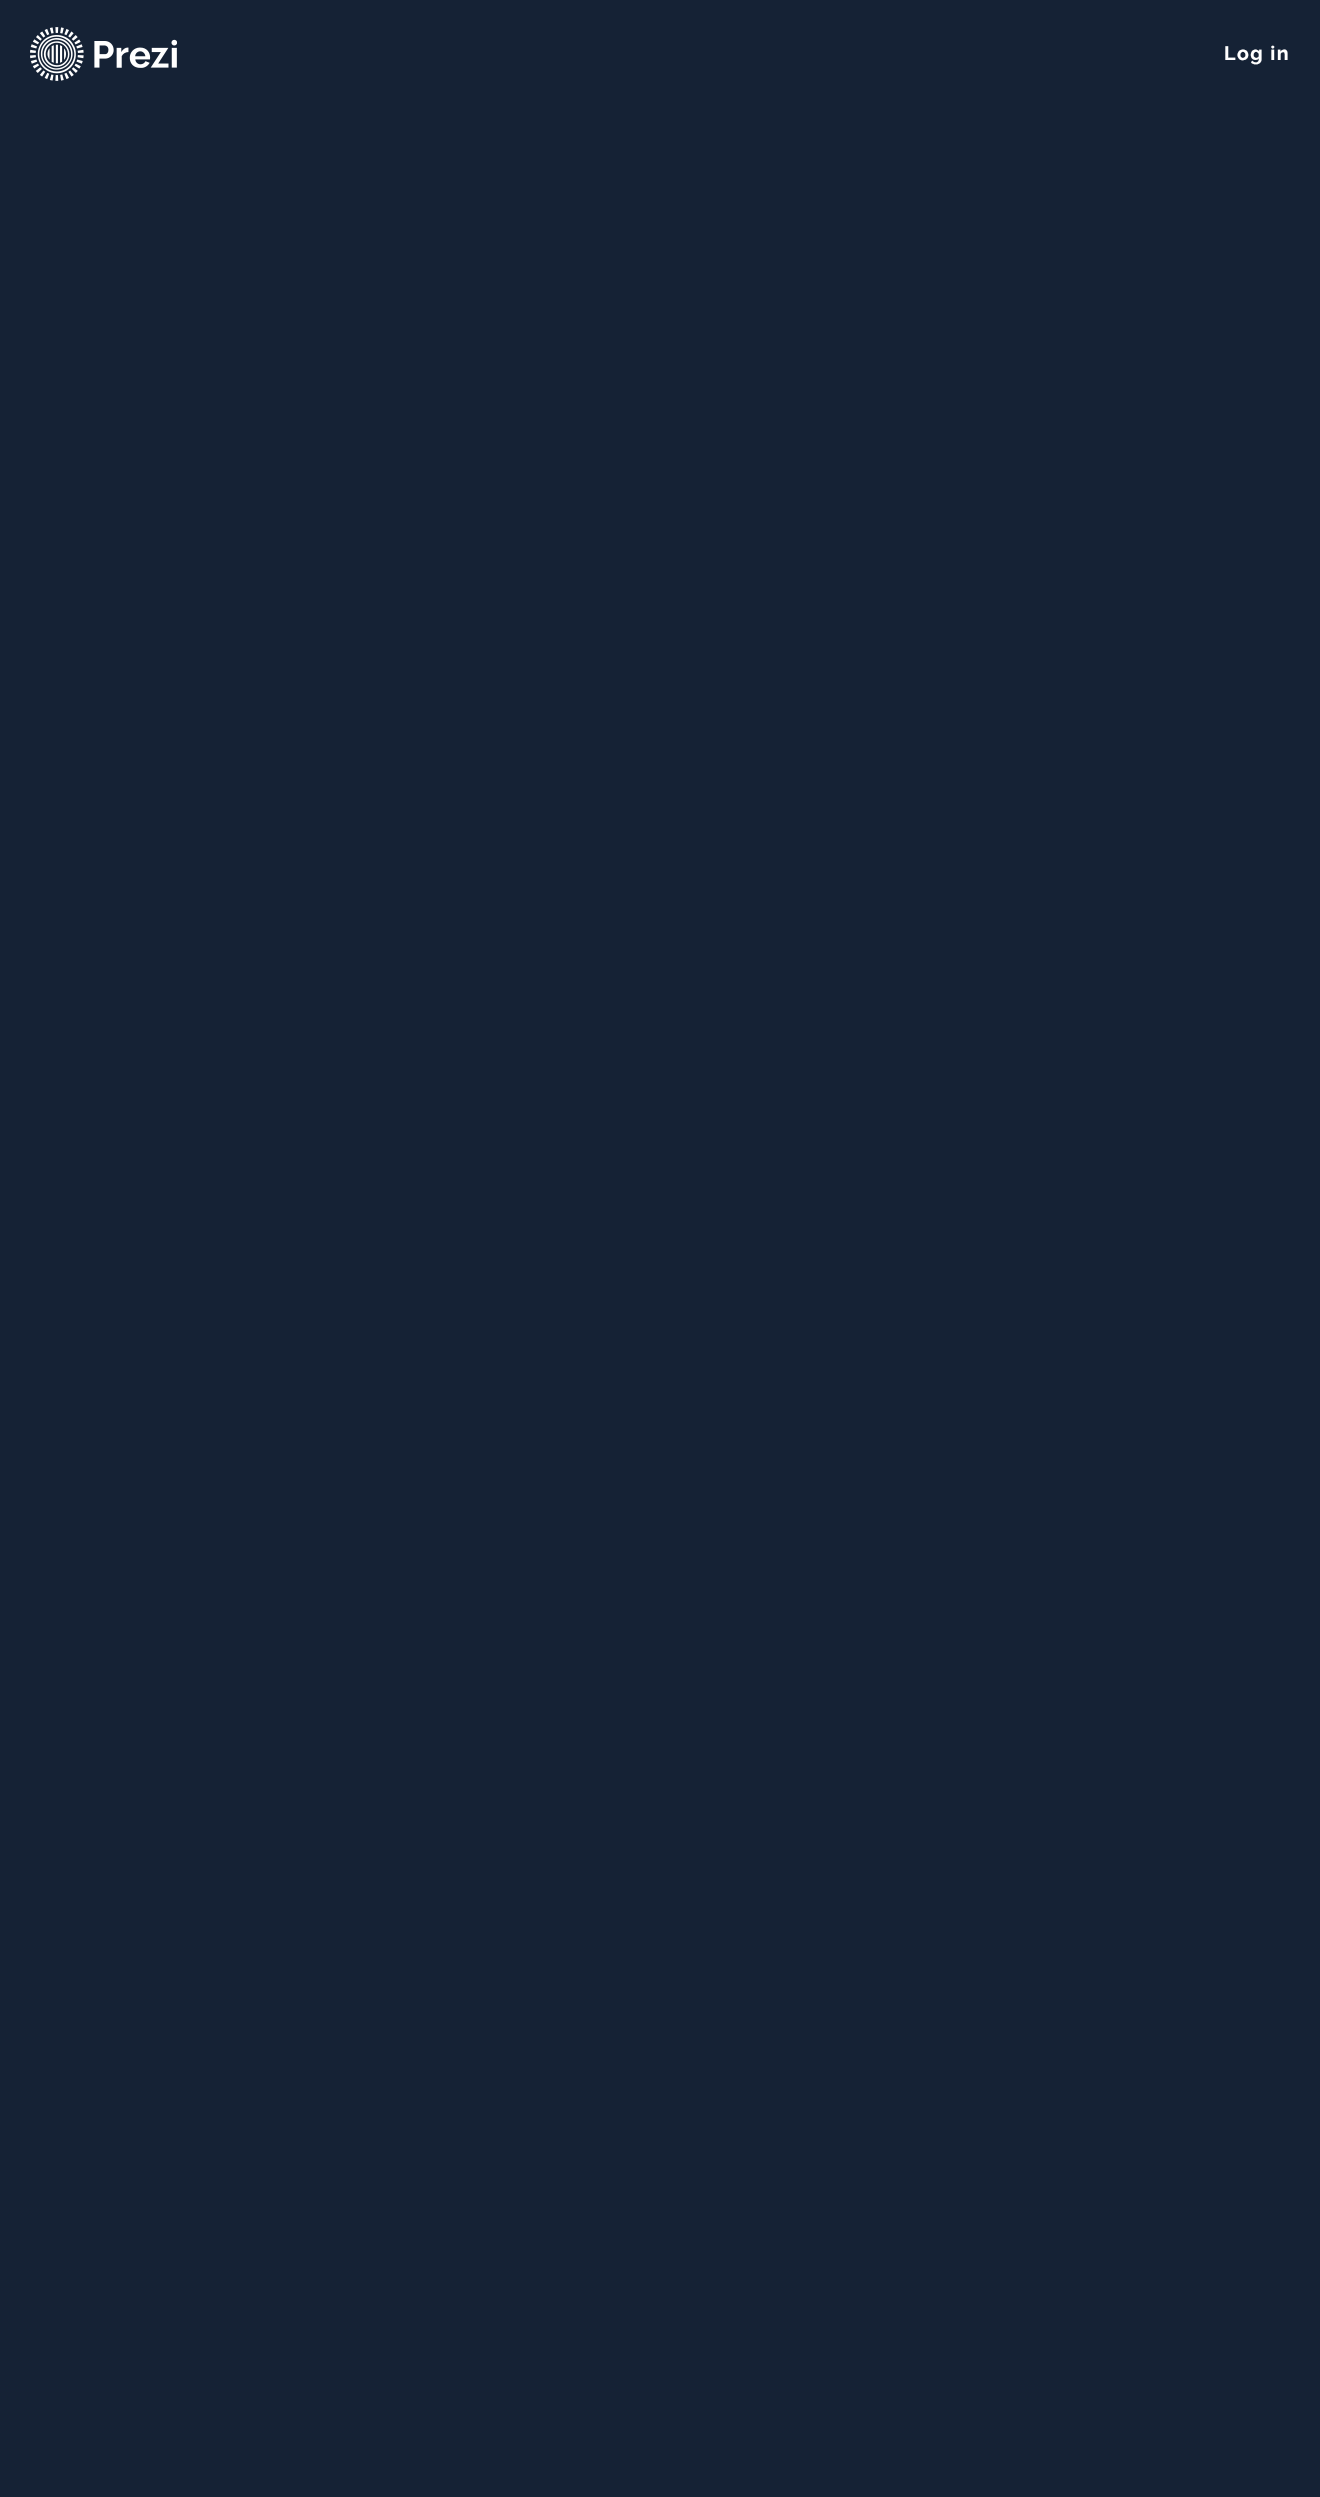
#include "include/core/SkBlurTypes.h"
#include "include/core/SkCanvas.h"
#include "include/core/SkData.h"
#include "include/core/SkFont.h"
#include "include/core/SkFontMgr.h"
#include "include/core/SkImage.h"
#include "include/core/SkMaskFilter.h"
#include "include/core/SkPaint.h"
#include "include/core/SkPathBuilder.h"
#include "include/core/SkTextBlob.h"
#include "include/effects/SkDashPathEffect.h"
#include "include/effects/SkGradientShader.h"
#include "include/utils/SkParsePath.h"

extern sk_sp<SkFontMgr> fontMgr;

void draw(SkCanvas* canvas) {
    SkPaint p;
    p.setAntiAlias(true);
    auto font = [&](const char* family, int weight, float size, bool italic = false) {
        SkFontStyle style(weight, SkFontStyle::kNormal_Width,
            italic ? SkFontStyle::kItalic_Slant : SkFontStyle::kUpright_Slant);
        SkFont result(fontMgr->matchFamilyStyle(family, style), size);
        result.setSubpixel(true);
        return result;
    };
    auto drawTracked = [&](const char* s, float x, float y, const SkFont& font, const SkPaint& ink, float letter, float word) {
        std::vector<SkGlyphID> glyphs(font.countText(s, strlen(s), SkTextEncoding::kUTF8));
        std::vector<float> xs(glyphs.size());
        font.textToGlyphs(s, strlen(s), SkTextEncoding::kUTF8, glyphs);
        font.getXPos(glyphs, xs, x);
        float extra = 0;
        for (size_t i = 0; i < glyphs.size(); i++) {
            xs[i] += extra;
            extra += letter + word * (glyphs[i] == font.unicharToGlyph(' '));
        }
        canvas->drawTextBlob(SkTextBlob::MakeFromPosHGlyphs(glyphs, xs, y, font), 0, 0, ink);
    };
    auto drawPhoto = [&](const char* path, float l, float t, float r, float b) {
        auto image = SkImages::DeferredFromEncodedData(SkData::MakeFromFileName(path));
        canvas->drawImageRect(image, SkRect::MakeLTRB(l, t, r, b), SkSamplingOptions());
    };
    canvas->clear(0xFF152235);
    drawPhoto("media/1.png", 30, 27, 177, 81);
    auto font1 = font("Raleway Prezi", 700, 19.5f);
    p.setColor(0xFFFFFFFF);
    drawTracked("Log in", 1224, 60, font1, p, 1.5f, 0);
}
